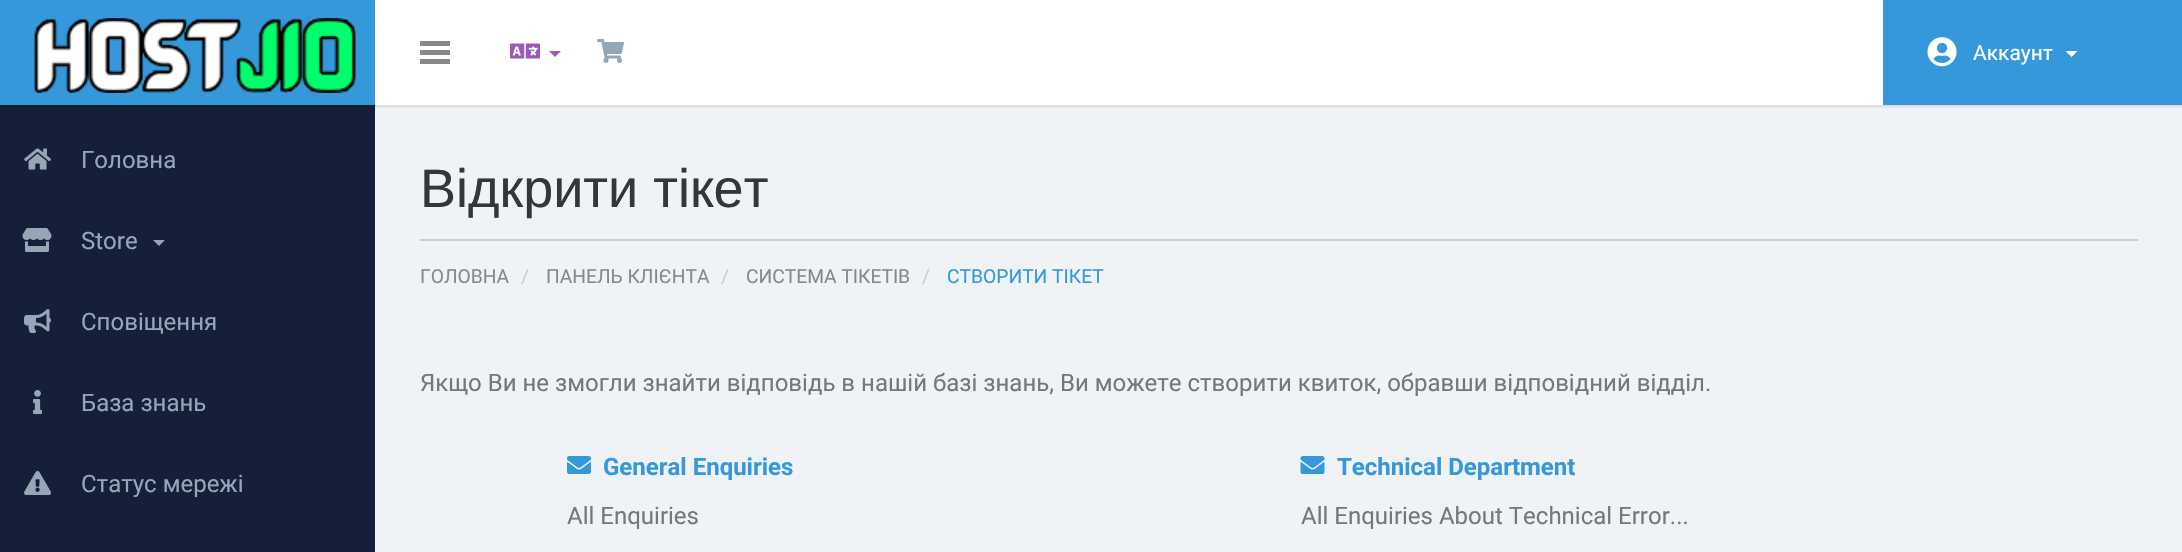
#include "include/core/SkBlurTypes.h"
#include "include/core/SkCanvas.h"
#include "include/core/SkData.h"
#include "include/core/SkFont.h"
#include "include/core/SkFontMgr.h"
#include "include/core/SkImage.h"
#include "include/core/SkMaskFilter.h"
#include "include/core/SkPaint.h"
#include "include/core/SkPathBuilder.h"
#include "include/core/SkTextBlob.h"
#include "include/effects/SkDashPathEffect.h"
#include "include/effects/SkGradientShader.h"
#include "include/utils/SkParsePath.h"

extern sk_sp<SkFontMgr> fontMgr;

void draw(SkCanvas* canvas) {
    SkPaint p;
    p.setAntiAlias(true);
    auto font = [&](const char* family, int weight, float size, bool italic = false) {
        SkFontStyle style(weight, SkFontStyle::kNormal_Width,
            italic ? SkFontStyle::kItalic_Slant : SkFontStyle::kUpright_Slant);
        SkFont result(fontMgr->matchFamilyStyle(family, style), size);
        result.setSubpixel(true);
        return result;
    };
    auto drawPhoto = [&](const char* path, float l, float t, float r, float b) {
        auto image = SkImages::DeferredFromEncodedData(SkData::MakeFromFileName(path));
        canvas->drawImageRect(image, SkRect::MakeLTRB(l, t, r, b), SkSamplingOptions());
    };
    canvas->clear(0xFFEFF3F6);
    p.setColor(0xFF151F3A);
    canvas->drawRect(SkRect::MakeLTRB(0, 105, 375, 552), p);
    p.setColor(0x1A000000);
    p.setMaskFilter(SkMaskFilter::MakeBlur(kNormal_SkBlurStyle, 1));
    canvas->drawRect(SkRect::MakeLTRB(2, 2, 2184, 107), p);
    p.setMaskFilter(nullptr);
    p.setColor(0xFFFFFFFF);
    canvas->drawRect(SkRect::MakeLTRB(375, 0, 1883, 105), p);
    p.setColor(0xFF3598DB);
    canvas->drawRect(SkRect::MakeLTRB(0, 0, 375, 105), p);
    drawPhoto("media/1.png", 34, 18, 356, 93);
    {
        const struct { float l, t, r, b; SkColor color; } items[] = {
            {420, 41, 450, 46, 0xFF888888},
            {420, 50, 450, 55, 0xFF888888},
            {420, 59, 450, 64, 0xFF888888},
        };
        for (auto [l, t, r, b, color] : items) {
            p.setColor(color);
            canvas->drawRect(SkRect::MakeLTRB(l, t, r, b), p);
        }
    }
    drawPhoto("media/2.png", 510, 43, 540, 59);
    p.setColor(0xFF9A59B5);
    canvas->drawPath(SkPathBuilder().moveTo(549, 51).lineTo(561, 51).lineTo(555, 57).close().detach(), p);
    drawPhoto("media/3.png", 597, 39, 624, 63);
    p.setColor(0xFF3598DB);
    canvas->drawRect(SkRect::MakeLTRB(1883, 0, 2182, 105), p);
    drawPhoto("media/4.png", 1927, 37, 1957, 67);
    auto font1 = font("Roboto", 400, 21);
    p.setColor(0xFFFFFFFF);
    canvas->drawString("Аккаунт", 1973, 60, font1, p);
    canvas->drawPath(SkPathBuilder().moveTo(2065.5f, 51).lineTo(2077.5f, 51).lineTo(2071.5f, 57).close().detach(), p);
    drawPhoto("media/5.png", 24, 148, 51, 170);
    auto font2 = font("Roboto", 400, 24);
    p.setColor(0xFF95A7B7);
    canvas->drawString("Головна", 81, 168, font2, p);
    drawPhoto("media/6.png", 22, 228, 52, 252);
    canvas->drawString("Store", 81, 249, font2, p);
    canvas->drawPath(SkPathBuilder().moveTo(153, 240).lineTo(165, 240).lineTo(159, 246).close().detach(), p);
    drawPhoto("media/7.png", 24, 309, 51, 333);
    canvas->drawString("Сповіщення", 81, 330, font2, p);
    drawPhoto("media/8.png", 33, 390, 42, 414);
    canvas->drawString("База знань", 81, 411, font2, p);
    drawPhoto("media/9.png", 24, 471, 51, 495);
    canvas->drawString("Статус мережі", 81, 492, font2, p);
    p.setColor(0xFFCCCCCC);
    canvas->drawRect(SkRect::MakeLTRB(420, 239, 2138, 241), p);
    auto font3 = font("Liberation Sans", 400, 54);
    p.setColor(0xFF31373D);
    canvas->drawString("Відкрити тікет", 420, 207, font3, p);
    auto font4 = font("Roboto", 400, 19.25f);
    p.setColor(0xFF888888);
    canvas->drawString("ГОЛОВНА", 420, 283, font4, p);
    p.setColor(0xFFCCCCCC);
    canvas->drawString("/", 521, 283, font4, p);
    p.setColor(0xFF888888);
    canvas->drawString("ПАНЕЛЬ КЛІЄНТА", 546, 283, font4, p);
    p.setColor(0xFFCCCCCC);
    canvas->drawString("/", 721, 283, font4, p);
    p.setColor(0xFF888888);
    canvas->drawString("СИСТЕМА ТІКЕТІВ", 746, 283, font4, p);
    p.setColor(0xFFCCCCCC);
    canvas->drawString("/", 922, 283, font4, p);
    p.setColor(0xFF3598DB);
    canvas->drawString("СТВОРИТИ ТІКЕТ", 947, 283, font4, p);
    p.setColor(0xFF777777);
    canvas->drawString("Якщо Ви не змогли знайти відповідь в нашій базі знань, Ви можете створити квиток, обравши відповідний відділ.", 420, 391, font2, p);
    drawPhoto("media/10.png", 567, 456, 591, 474);
    auto font5 = font("Roboto", 700, 24);
    p.setColor(0xFF3598DB);
    canvas->drawString("General Enquiries", 603, 475, font5, p);
    p.setColor(0xFF777777);
    canvas->drawString("All Enquiries", 567, 524, font2, p);
    drawPhoto("media/11.png", 1300, 456, 1325, 474);
    p.setColor(0xFF3598DB);
    canvas->drawString("Technical Department", 1337, 475, font5, p);
    p.setColor(0xFF777777);
    canvas->drawString("All Enquiries About Technical Error...", 1301, 524, font2, p);
}
